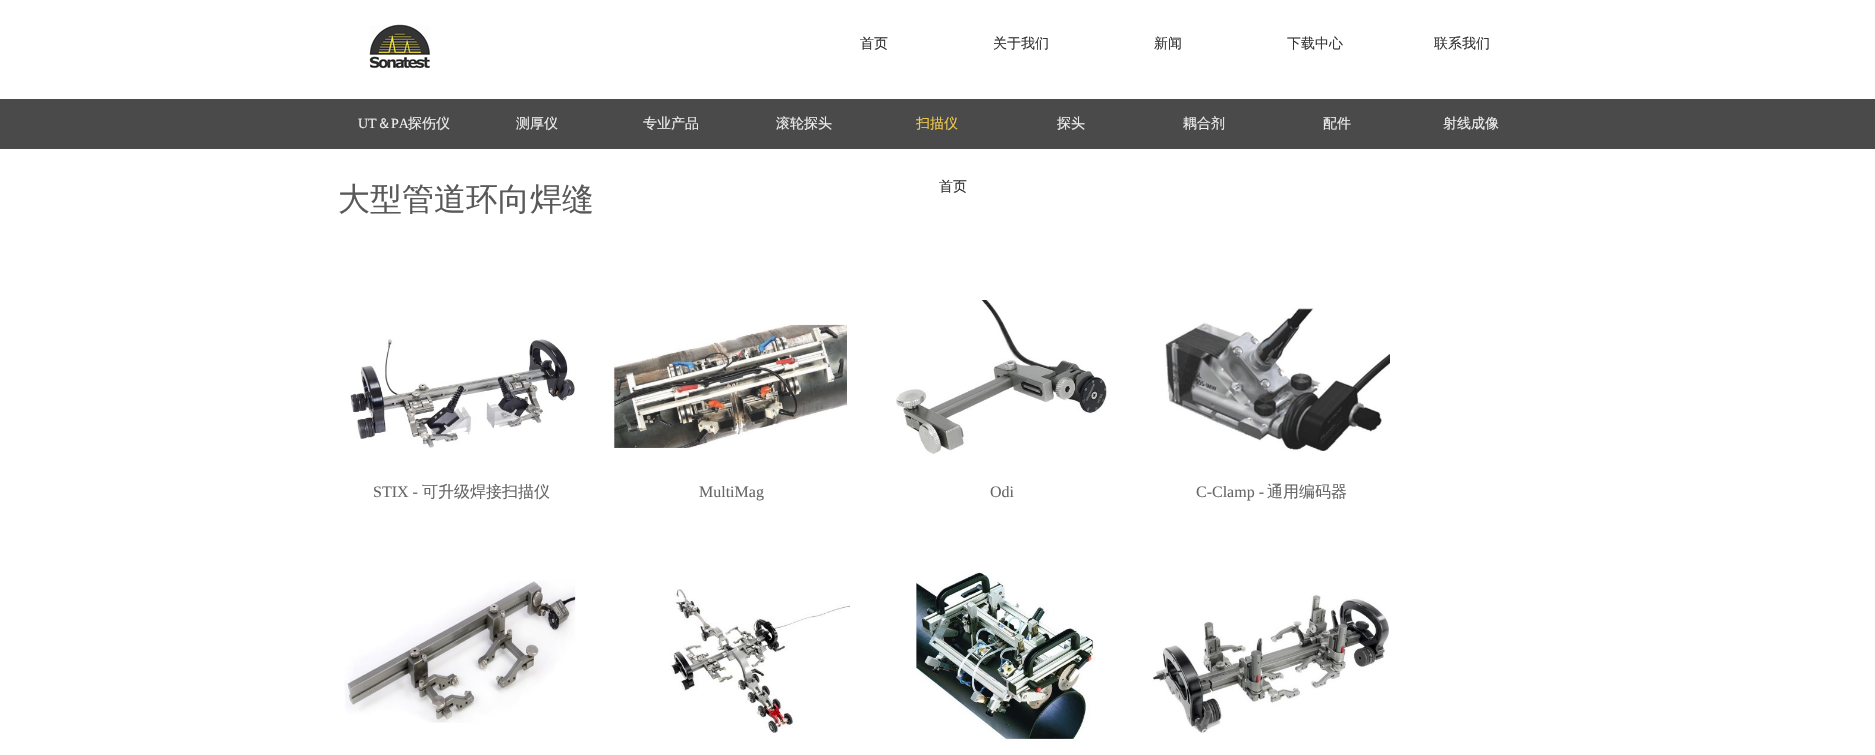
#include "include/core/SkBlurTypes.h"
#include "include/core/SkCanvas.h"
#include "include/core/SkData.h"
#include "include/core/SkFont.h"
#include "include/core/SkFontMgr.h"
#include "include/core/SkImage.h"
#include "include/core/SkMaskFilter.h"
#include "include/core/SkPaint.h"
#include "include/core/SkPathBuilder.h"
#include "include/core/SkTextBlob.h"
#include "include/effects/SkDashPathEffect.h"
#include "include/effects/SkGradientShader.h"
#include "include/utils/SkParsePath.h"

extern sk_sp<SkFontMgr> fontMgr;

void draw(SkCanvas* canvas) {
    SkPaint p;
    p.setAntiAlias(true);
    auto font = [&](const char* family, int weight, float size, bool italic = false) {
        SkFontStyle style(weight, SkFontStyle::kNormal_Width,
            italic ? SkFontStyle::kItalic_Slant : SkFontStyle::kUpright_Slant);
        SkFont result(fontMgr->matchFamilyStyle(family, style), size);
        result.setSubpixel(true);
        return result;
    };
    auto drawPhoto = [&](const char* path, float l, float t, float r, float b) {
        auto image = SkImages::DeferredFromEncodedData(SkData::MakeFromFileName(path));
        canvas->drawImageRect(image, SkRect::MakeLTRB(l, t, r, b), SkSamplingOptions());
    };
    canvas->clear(0xFFFFFFFF);
    drawPhoto("media/1.png", 369, 24, 430, 69);
    auto font1 = font("WenQuanYi Zen Hei", 500, 14);
    p.setColor(0xFF333333);
    {
        const struct { const char* s; float x, y; } items[] = {
            {"首页", 860, 48},
            {"关于我们", 993, 48},
            {"新闻", 1154, 48},
            {"下载中心", 1287, 48},
            {"联系我们", 1434, 48},
        };
        for (auto [s, x, y] : items) {
            canvas->drawString(s, x, y, font1, p);
        }
    }
    p.setColor(0xFF4A4A4A);
    canvas->drawRect(SkRect::MakeLTRB(0, 99, 1875, 149), p);
    auto font2 = font("Liberation Serif", 400, 14);
    p.setColor(0xFFEEEEEE);
    canvas->drawString("UT", 358, 128, font2, p);
    canvas->drawString("＆", 377, 128, font1, p);
    canvas->drawString("PA", 391, 128, font2, p);
    {
        const struct { const char* s; float x, y; } items[] = {
            {"探伤仪", 408, 128},
            {"测厚仪", 516, 128},
            {"专业产品", 643, 128},
            {"滚轮探头", 776, 128},
        };
        for (auto [s, x, y] : items) {
            canvas->drawString(s, x, y, font1, p);
        }
    }
    p.setColor(0xFFEEC84C);
    canvas->drawString("扫描仪", 916, 128, font1, p);
    p.setColor(0xFFEEEEEE);
    {
        const struct { const char* s; float x, y; } items[] = {
            {"探头", 1057, 128},
            {"耦合剂", 1183, 128},
            {"配件", 1323, 128},
            {"射线成像", 1443, 128},
        };
        for (auto [s, x, y] : items) {
            canvas->drawString(s, x, y, font1, p);
        }
    }
    auto font3 = font("WenQuanYi Zen Hei", 500, 32);
    p.setColor(0xFF595959);
    canvas->drawString("大型管道环向焊缝", 338, 210, font3, p);
    p.setColor(0xFF333333);
    canvas->drawString("首页", 939, 191, font1, p);
    drawPhoto("media/2.png", 350, 338, 575, 448);
    drawPhoto("media/3.png", 613, 324, 849, 449);
    drawPhoto("media/4.png", 896, 300, 1110, 454);
    drawPhoto("media/5.png", 1165, 308, 1390, 452);
    auto font4 = font("Liberation Serif", 400, 16);
    p.setColor(0xFF666666);
    canvas->drawString("STIX -", 373, 497, font4, p);
    auto font5 = font("WenQuanYi Zen Hei", 500, 16);
    canvas->drawString("可升级焊接扫描仪", 422, 497, font5, p);
    {
        const struct { const char* s; float x, y; } items[] = {
            {"MultiMag", 699, 497},
            {"Odi", 990, 497},
            {"C-Clamp -", 1196, 497},
        };
        for (auto [s, x, y] : items) {
            canvas->drawString(s, x, y, font4, p);
        }
    }
    canvas->drawString("通用编码器", 1267, 497, font5, p);
    drawPhoto("media/6.png", 344, 580, 576, 723);
    drawPhoto("media/7.png", 669, 589, 850, 733);
    drawPhoto("media/8.png", 915, 571, 1096, 742);
    drawPhoto("media/9.png", 1152, 595, 1389, 733);
}
